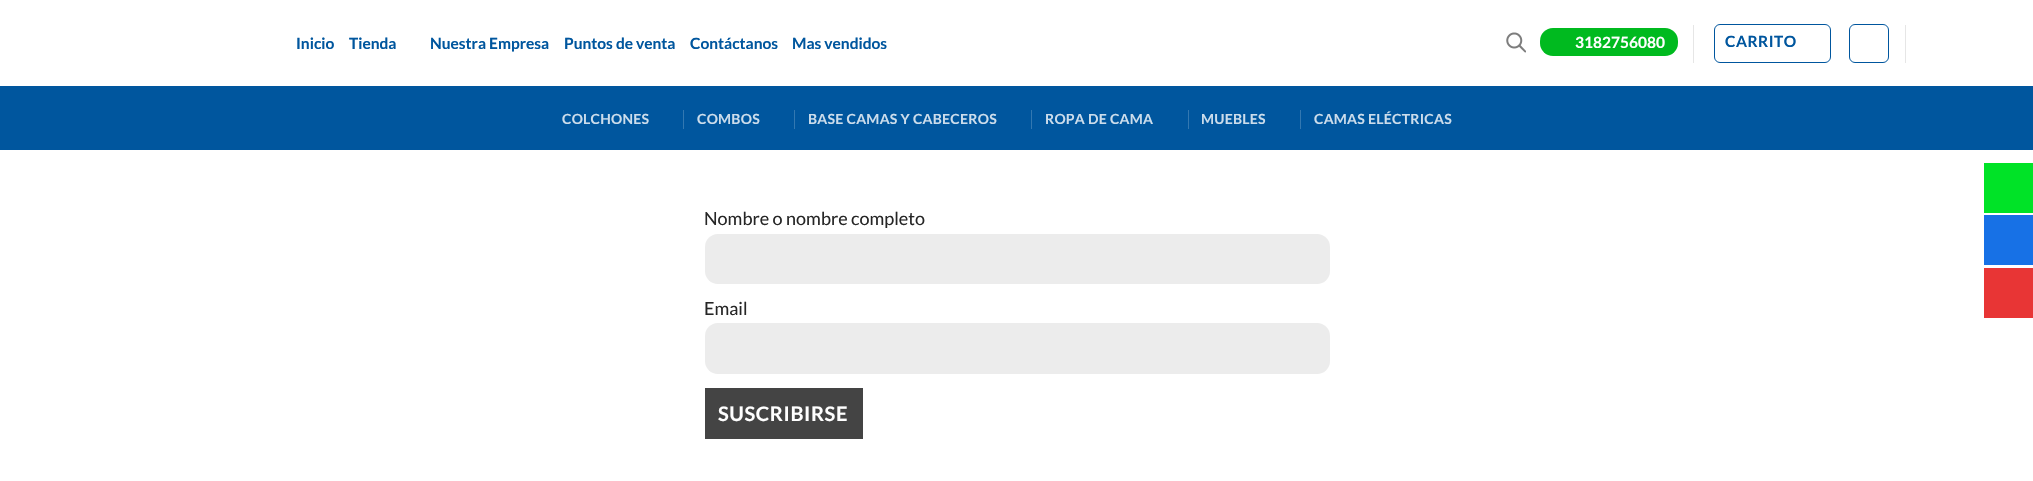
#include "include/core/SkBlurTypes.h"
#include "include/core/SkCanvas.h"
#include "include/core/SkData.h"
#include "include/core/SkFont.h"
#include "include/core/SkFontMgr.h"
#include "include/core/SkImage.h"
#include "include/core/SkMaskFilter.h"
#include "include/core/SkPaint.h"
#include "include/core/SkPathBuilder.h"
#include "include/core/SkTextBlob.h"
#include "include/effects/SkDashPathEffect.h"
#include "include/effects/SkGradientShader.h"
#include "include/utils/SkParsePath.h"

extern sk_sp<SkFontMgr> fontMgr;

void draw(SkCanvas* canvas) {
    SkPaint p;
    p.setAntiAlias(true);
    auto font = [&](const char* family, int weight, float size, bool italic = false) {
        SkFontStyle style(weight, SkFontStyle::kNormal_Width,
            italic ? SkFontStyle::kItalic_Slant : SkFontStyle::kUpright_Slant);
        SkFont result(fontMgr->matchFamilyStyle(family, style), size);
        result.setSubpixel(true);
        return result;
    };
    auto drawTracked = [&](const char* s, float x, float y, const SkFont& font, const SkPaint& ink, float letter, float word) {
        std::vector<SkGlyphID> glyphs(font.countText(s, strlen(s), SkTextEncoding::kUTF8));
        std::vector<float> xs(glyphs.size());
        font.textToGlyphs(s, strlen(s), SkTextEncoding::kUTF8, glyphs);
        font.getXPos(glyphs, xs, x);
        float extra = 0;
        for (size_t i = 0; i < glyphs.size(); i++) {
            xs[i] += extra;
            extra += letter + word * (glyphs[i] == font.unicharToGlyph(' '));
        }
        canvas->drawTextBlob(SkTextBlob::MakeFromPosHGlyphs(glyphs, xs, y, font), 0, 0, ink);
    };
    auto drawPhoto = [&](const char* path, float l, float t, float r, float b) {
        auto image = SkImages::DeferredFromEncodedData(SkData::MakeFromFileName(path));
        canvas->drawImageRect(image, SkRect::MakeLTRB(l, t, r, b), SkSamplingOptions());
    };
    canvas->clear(0xFFFFFFFF);
    auto font1 = font("Lato", 700, 15.5f);
    p.setColor(0xFF00569E);
    {
        const struct { const char* s; float x, y; } items[] = {
            {"Inicio", 296, 49},
            {"Tienda", 349, 49},
            {"Nuestra Empresa", 430, 49},
            {"Puntos de venta", 564, 49},
            {"Contáctanos", 690, 49},
            {"Mas vendidos", 792, 49},
        };
        for (auto [s, x, y] : items) {
            canvas->drawString(s, x, y, font1, p);
        }
    }
    drawPhoto("media/1.png", 1506, 32, 1526, 53);
    p.setColor(0xFF00BA1F);
    canvas->drawRoundRect(SkRect::MakeLTRB(1540, 28, 1678, 56), 13, 13, p);
    p.setColor(0xFFFFFFFF);
    canvas->drawString("3182756080", 1575, 48, font1, p);
    p.setColor(0xFFE6E6E6);
    canvas->drawRect(SkRect::MakeLTRB(1693, 25, 1694, 63), p);
    p.setStyle(SkPaint::kStroke_Style);
    p.setStrokeWidth(1);
    p.setColor(0xFF00569E);
    canvas->drawRoundRect(SkRect::MakeLTRB(1714.5f, 24.5f, 1830.5f, 62.5f), 5.5f, 5.5f, p);
    p.setStyle(SkPaint::kFill_Style);
    drawTracked("CARRITO", 1725, 47, font1, p, 0.5f, 0);
    p.setStyle(SkPaint::kStroke_Style);
    canvas->drawRoundRect(SkRect::MakeLTRB(1849.5f, 24.5f, 1888.5f, 62.5f), 5.5f, 5.5f, p);
    p.setStyle(SkPaint::kFill_Style);
    p.setColor(0xFFE6E6E6);
    canvas->drawRect(SkRect::MakeLTRB(1905, 25, 1906, 63), p);
    p.setColor(0xFF00569E);
    canvas->drawRect(SkRect::MakeLTRB(0, 86, 2033, 150), p);
    auto font2 = font("Lato", 700, 14);
    p.setColor(0xFFCCDDEC);
    drawTracked("COLCHONES", 562, 124, font2, p, 0.25f, 0);
    p.setColor(0xFF3378B1);
    canvas->drawRect(SkRect::MakeLTRB(683, 110, 684, 129), p);
    p.setColor(0xFFCCDDEC);
    drawTracked("COMBOS", 697, 124, font2, p, 0.25f, 0);
    p.setColor(0xFF3378B1);
    canvas->drawRect(SkRect::MakeLTRB(794, 110, 795, 129), p);
    p.setColor(0xFFCCDDEC);
    drawTracked("BASE CAMAS Y CABECEROS", 808, 124, font2, p, 0.25f, 0);
    p.setColor(0xFF3378B1);
    canvas->drawRect(SkRect::MakeLTRB(1031, 110, 1032, 129), p);
    p.setColor(0xFFCCDDEC);
    drawTracked("ROPA DE CAMA", 1045, 124, font2, p, 0.25f, 0);
    p.setColor(0xFF3378B1);
    canvas->drawRect(SkRect::MakeLTRB(1188, 110, 1189, 129), p);
    p.setColor(0xFFCCDDEC);
    drawTracked("MUEBLES", 1201, 124, font2, p, 0.25f, 0);
    p.setColor(0xFF3378B1);
    canvas->drawRect(SkRect::MakeLTRB(1300, 110, 1301, 129), p);
    p.setColor(0xFFCCDDEC);
    drawTracked("CAMAS ELÉCTRICAS", 1314, 124, font2, p, 0.25f, 0);
    auto font3 = font("Lato", 400, 18);
    p.setColor(0xFF262626);
    canvas->drawString("Nombre o nombre completo", 704, 225, font3, p);
    p.setColor(0xFFECECEC);
    canvas->drawRoundRect(SkRect::MakeLTRB(705, 234, 1330, 284), 13, 13, p);
    p.setColor(0xFF262626);
    canvas->drawString("Email", 704, 315, font3, p);
    p.setColor(0xFFECECEC);
    canvas->drawRoundRect(SkRect::MakeLTRB(705, 323, 1330, 374), 13, 13, p);
    p.setColor(0xFF444444);
    canvas->drawRect(SkRect::MakeLTRB(705, 388, 863, 439), p);
    auto font4 = font("Lato", 700, 20);
    p.setColor(0xFFFFFFFF);
    drawTracked("SUSCRIBIRSE", 718, 421, font4, p, 0.6f, 0);
    {
        const struct { float l, t, r, b; SkColor color; } items[] = {
            {1984, 163, 2033, 213, 0xFF00E327},
            {1984, 215, 2033, 265, 0xFF1771E6},
            {1984, 268, 2033, 318, 0xFFE83535},
        };
        for (auto [l, t, r, b, color] : items) {
            p.setColor(color);
            canvas->drawRect(SkRect::MakeLTRB(l, t, r, b), p);
        }
    }
}
